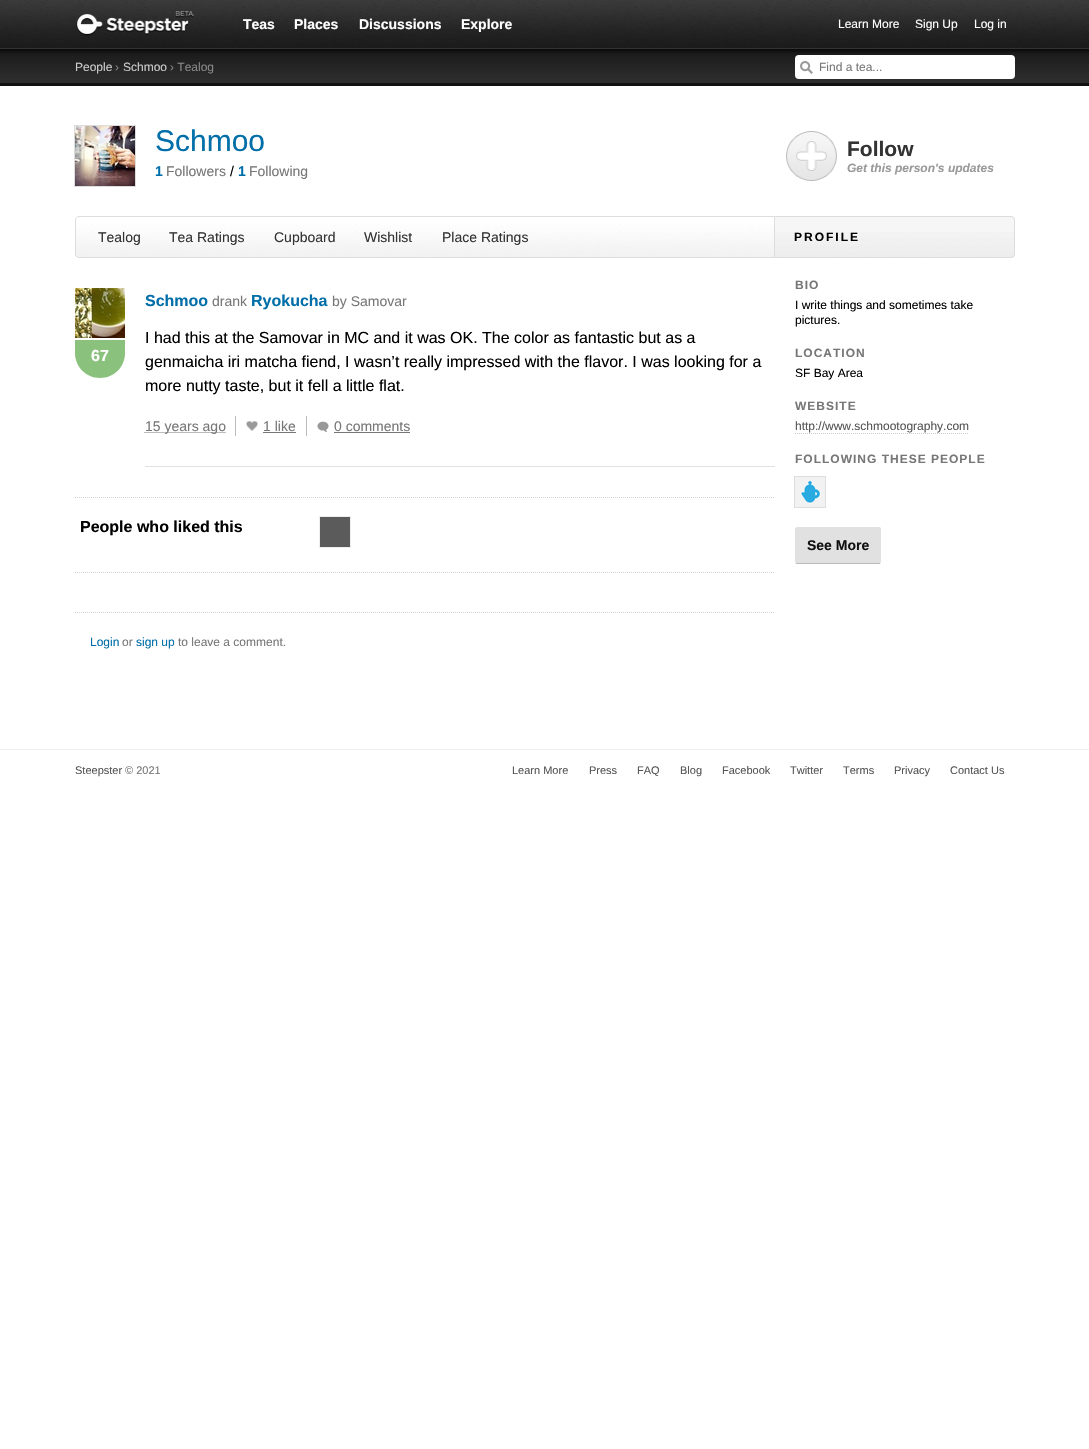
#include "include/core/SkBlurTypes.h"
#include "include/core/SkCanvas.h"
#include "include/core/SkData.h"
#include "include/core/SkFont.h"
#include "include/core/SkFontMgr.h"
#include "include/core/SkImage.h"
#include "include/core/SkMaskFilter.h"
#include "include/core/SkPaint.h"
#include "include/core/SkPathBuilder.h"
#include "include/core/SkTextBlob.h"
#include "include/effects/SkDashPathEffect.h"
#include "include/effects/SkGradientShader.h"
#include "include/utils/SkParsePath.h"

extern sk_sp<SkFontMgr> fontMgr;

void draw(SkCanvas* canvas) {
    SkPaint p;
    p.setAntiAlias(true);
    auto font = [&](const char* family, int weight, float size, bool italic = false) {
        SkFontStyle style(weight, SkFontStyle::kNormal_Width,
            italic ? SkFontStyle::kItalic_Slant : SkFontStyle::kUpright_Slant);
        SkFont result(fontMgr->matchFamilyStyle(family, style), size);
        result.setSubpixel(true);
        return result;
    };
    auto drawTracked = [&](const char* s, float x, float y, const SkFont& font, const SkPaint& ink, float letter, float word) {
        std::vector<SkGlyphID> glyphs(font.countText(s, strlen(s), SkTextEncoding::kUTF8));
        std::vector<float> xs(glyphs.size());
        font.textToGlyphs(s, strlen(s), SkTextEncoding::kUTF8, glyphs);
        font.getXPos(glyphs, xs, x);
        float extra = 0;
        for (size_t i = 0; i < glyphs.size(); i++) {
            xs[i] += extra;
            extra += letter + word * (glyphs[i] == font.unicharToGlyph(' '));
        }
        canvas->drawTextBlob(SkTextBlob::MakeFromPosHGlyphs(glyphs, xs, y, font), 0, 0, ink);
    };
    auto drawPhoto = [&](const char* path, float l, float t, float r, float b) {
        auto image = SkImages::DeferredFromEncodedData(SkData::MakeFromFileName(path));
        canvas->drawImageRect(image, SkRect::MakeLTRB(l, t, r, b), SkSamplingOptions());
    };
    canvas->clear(0xFFFFFFFF);
    drawPhoto("media/1.png", 0, 0, 1089, 48);
    drawPhoto("media/2.png", 76, 11, 194, 36);
    auto font1 = font("Liberation Sans", 700, 14);
    p.setColor(0xFFFFFFFF);
    {
        const struct { const char* s; float x, y; } items[] = {
            {"Teas", 243, 29},
            {"Places", 294, 29},
            {"Discussions", 359, 29},
            {"Explore", 461, 29},
        };
        for (auto [s, x, y] : items) {
            canvas->drawString(s, x, y, font1, p);
        }
    }
    auto font2 = font("Liberation Sans", 400, 12);
    {
        const struct { const char* s; float x, y; } items[] = {
            {"Learn More", 838, 28},
            {"Sign Up", 915, 28},
            {"Log in", 974, 28},
        };
        for (auto [s, x, y] : items) {
            canvas->drawString(s, x, y, font2, p);
        }
    }
    p.setColor(0xFF111111);
    canvas->drawRect(SkRect::MakeLTRB(0, 83, 1089, 86), p);
    drawPhoto("media/3.png", 0, 49, 1089, 83);
    p.setColor(0xFF333333);
    canvas->drawRect(SkRect::MakeLTRB(0, 48, 1089, 49), p);
    p.setColor(0xFFCCCCCC);
    canvas->drawString("People", 75, 71, font2, p);
    p.setColor(0xFF888888);
    canvas->drawString("›", 115, 71, font2, p);
    p.setColor(0xFFCCCCCC);
    canvas->drawString("Schmoo", 123, 71, font2, p);
    p.setColor(0xFF888888);
    canvas->drawString("› Tealog", 170, 71, font2, p);
    p.setColor(0xFFFFFFFF);
    canvas->drawRoundRect(SkRect::MakeLTRB(795, 55, 1015, 79), 4, 4, p);
    drawPhoto("media/4.png", 800, 61, 813, 74);
    p.setColor(0xFF777777);
    canvas->drawString("Find a tea...", 819, 71, font2, p);
    drawPhoto("media/5.png", 75, 126, 135, 186);
    p.setStyle(SkPaint::kStroke_Style);
    p.setStrokeWidth(1);
    p.setColor(0xFFDDDDDD);
    canvas->drawRect(SkRect::MakeLTRB(74.5f, 125.5f, 135.5f, 186.5f), p);
    auto font3 = font("Liberation Sans", 400, 30);
    p.setStyle(SkPaint::kFill_Style);
    p.setColor(0xFF006EA8);
    canvas->drawString("Schmoo", 155, 151, font3, p);
    canvas->drawString("1", 155, 176, font1, p);
    auto font4 = font("Liberation Sans", 400, 14);
    p.setColor(0xFF777777);
    canvas->drawString("Followers", 166, 176, font4, p);
    p.setColor(0xFF000000);
    canvas->drawString("/", 230, 176, font4, p);
    p.setColor(0xFF006EA8);
    canvas->drawString("1", 238, 176, font1, p);
    p.setColor(0xFF777777);
    canvas->drawString("Following", 249, 176, font4, p);
    drawPhoto("media/6.png", 75, 224, 774, 257);
    p.setStyle(SkPaint::kStroke_Style);
    p.setColor(0xFFDDDDDD);
    canvas->drawPath(SkPathBuilder().moveTo(79, 216.5f).lineTo(774.5f, 216.5f).lineTo(774.5f, 257.5f).lineTo(79, 257.5f).cubicTo(77, 257.5f, 75.5f, 256, 75.5f, 254).lineTo(75.5f, 220).cubicTo(75.5f, 218, 77, 216.5f, 79, 216.5f).close().detach(), p);
    p.setStyle(SkPaint::kFill_Style);
    p.setColor(0xFF333333);
    {
        const struct { const char* s; float x, y; } items[] = {
            {"Tealog", 98, 242},
            {"Tea Ratings", 169, 242},
            {"Cupboard", 274, 242},
            {"Wishlist", 364, 242},
            {"Place Ratings", 442, 242},
        };
        for (auto [s, x, y] : items) {
            canvas->drawString(s, x, y, font4, p);
        }
    }
    auto font5 = font("Liberation Sans", 700, 16);
    p.setColor(0xFF006EA8);
    canvas->drawString("Schmoo", 145, 306, font5, p);
    p.setColor(0xFF777777);
    canvas->drawString("drank", 212, 306, font4, p);
    p.setColor(0xFF006EA8);
    canvas->drawString("Ryokucha", 251, 306, font5, p);
    p.setColor(0xFF777777);
    canvas->drawString("by Samovar", 332, 306, font4, p);
    p.setColor(0xFF8AC17C);
    canvas->drawPath(SkPathBuilder().moveTo(75, 323).lineTo(125, 323).lineTo(125, 353).cubicTo(125, 367, 114, 378, 100, 378).cubicTo(86, 378, 75, 367, 75, 353).close().detach(), p);
    p.setStyle(SkPaint::kStroke_Style);
    p.setStrokeWidth(2);
    p.setColor(0xFFFFFFFF);
    canvas->drawRect(SkRect::MakeLTRB(74, 287, 126, 339), p);
    drawPhoto("media/7.png", 75, 288, 125, 338);
    p.setStyle(SkPaint::kFill_Style);
    canvas->drawString("67", 91, 361, font5, p);
    p.setColor(0xFFE1E1E1);
    canvas->drawRect(SkRect::MakeLTRB(145, 466, 775, 467), p);
    auto font6 = font("Liberation Sans", 400, 16);
    p.setColor(0xFF000000);
    {
        const struct { const char* s; float x, y; } items[] = {
            {"I had this at the Samovar in MC and it was OK. The color as fantastic but as a", 145, 343},
            {"genmaicha iri matcha fiend, I wasn’t really impressed with the flavor. I was looking for a", 145, 367},
            {"more nutty taste, but it fell a little flat.", 145, 391},
        };
        for (auto [s, x, y] : items) {
            canvas->drawString(s, x, y, font6, p);
        }
    }
    p.setColor(0xFFBBBBBB);
    canvas->drawRect(SkRect::MakeLTRB(235, 416, 236, 436), p);
    p.setStyle(SkPaint::kStroke_Style);
    p.setStrokeWidth(1);
    p.setColor(0xFF777777);
    p.setPathEffect(SkDashPathEffect::Make({{1, 1}}, 0));
    canvas->drawPath(SkPathBuilder().moveTo(144.5f, 432.5f).lineTo(225.5f, 432.5f).detach(), p);
    p.setPathEffect(nullptr);
    p.setStyle(SkPaint::kFill_Style);
    canvas->drawString("15 years ago", 145, 431, font4, p);
    drawPhoto("media/8.png", 246, 421, 258, 431);
    p.setColor(0xFFBBBBBB);
    canvas->drawRect(SkRect::MakeLTRB(306, 416, 307, 436), p);
    p.setColor(0xFF777777);
    canvas->drawString("1 like", 263, 431, font4, p);
    canvas->drawRect(SkRect::MakeLTRB(263, 432, 296, 433), p);
    drawPhoto("media/9.png", 317, 421, 329, 432);
    canvas->drawString("0 comments", 334, 431, font4, p);
    canvas->drawRect(SkRect::MakeLTRB(334, 432, 410, 433), p);
    p.setStyle(SkPaint::kStroke_Style);
    p.setColor(0xFFD3D3D3);
    p.setPathEffect(SkDashPathEffect::Make({{1, 1}}, 0));
    canvas->drawPath(SkPathBuilder().moveTo(75, 497.5f).lineTo(775, 497.5f).detach(), p);
    p.setPathEffect(nullptr);
    p.setStyle(SkPaint::kFill_Style);
    p.setColor(0xFF000000);
    canvas->drawString("People who liked this", 80, 532, font5, p);
    p.setColor(0xFF5B5B5B);
    canvas->drawRect(SkRect::MakeLTRB(319.5f, 516.5f, 350.5f, 547.5f), p);
    p.setStyle(SkPaint::kStroke_Style);
    p.setColor(0xFFEEEEEE);
    canvas->drawRect(SkRect::MakeLTRB(319.5f, 516.5f, 350.5f, 547.5f), p);
    p.setColor(0xFFD3D3D3);
    p.setPathEffect(SkDashPathEffect::Make({{1, 1}}, 0));
    canvas->drawPath(SkPathBuilder().moveTo(75, 572.5f).lineTo(775, 572.5f).detach(), p);
    p.setPathEffect(nullptr);
    p.setPathEffect(SkDashPathEffect::Make({{1, 1}}, 0));
    canvas->drawPath(SkPathBuilder().moveTo(75, 612.5f).lineTo(775, 612.5f).detach(), p);
    p.setPathEffect(nullptr);
    p.setStyle(SkPaint::kFill_Style);
    p.setColor(0xFF006EA8);
    canvas->drawString("Login", 90, 646, font2, p);
    p.setColor(0xFF777777);
    canvas->drawString("or", 122, 646, font2, p);
    p.setColor(0xFF006EA8);
    canvas->drawString("sign up", 136, 646, font2, p);
    p.setColor(0xFF777777);
    canvas->drawString("to leave a comment.", 178, 646, font2, p);
    drawPhoto("media/10.png", 786, 131, 837, 181);
    auto font7 = font("Liberation Sans", 700, 21);
    p.setColor(0xFF333333);
    canvas->drawString("Follow", 847, 156, font7, p);
    auto font8 = font("Liberation Sans", 700, 12, true);
    p.setColor(0xFF999999);
    canvas->drawString("Get this person's updates", 847, 172, font8, p);
    p.setColor(0xFFF6F6F6);
    canvas->drawPath(SkPathBuilder().moveTo(775, 216).lineTo(1011, 216).cubicTo(1013, 216, 1015, 218, 1015, 220).lineTo(1015, 254).cubicTo(1015, 256, 1013, 258, 1011, 258).lineTo(775, 258).close().detach(), p);
    drawPhoto("media/11.png", 775, 232, 1015, 257);
    p.setColor(0xFFDDDDDD);
    canvas->drawPath(SkPathBuilder(SkPathFillType::kEvenOdd).moveTo(775, 216).lineTo(1011, 216).cubicTo(1013, 216, 1015, 218, 1015, 220).lineTo(1015, 254).cubicTo(1015, 256, 1013, 258, 1011, 258).lineTo(775, 258).close().moveTo(775, 217).lineTo(1011, 217).cubicTo(1013, 217, 1014, 218, 1014, 220).lineTo(1014, 254).cubicTo(1014, 256, 1013, 257, 1011, 257).lineTo(775, 257).close().detach(), p);
    auto font9 = font("Liberation Sans", 700, 12);
    p.setColor(0xFF000000);
    drawTracked("PROFILE", 794, 241, font9, p, 2, 0);
    p.setColor(0xFF777777);
    drawTracked("BIO", 795, 289, font9, p, 1, 0);
    p.setColor(0xFF000000);
    canvas->drawString("I write things and sometimes take", 795, 309, font2, p);
    canvas->drawString("pictures.", 795, 324, font2, p);
    p.setColor(0xFF777777);
    drawTracked("LOCATION", 795, 357, font9, p, 1, 0);
    p.setColor(0xFF000000);
    canvas->drawString("SF Bay Area", 795, 377, font2, p);
    p.setColor(0xFF777777);
    drawTracked("WEBSITE", 795, 410, font9, p, 1, 0);
    p.setColor(0xFF555555);
    canvas->drawString("http://www.schmootography.com", 795, 430, font2, p);
    p.setStyle(SkPaint::kStroke_Style);
    p.setColor(0xFFCCCCCC);
    p.setPathEffect(SkDashPathEffect::Make({{1, 1}}, 0));
    canvas->drawPath(SkPathBuilder().moveTo(795, 433.5f).lineTo(969, 433.5f).detach(), p);
    p.setPathEffect(nullptr);
    p.setStyle(SkPaint::kFill_Style);
    p.setColor(0xFF777777);
    drawTracked("FOLLOWING THESE PEOPLE", 795, 463, font9, p, 1, 0);
    drawPhoto("media/12.png", 795, 477, 825, 507);
    p.setStyle(SkPaint::kStroke_Style);
    p.setColor(0xFFDDDDDD);
    canvas->drawRect(SkRect::MakeLTRB(794.5f, 476.5f, 825.5f, 507.5f), p);
    p.setStyle(SkPaint::kFill_Style);
    p.setColor(0xFFE1E1E1);
    canvas->drawRoundRect(SkRect::MakeLTRB(795, 527, 881, 564), 2, 2, p);
    p.setColor(0xFFBBBBBB);
    canvas->drawRect(SkRect::MakeLTRB(796, 563, 880, 564), p);
    p.setColor(0xFF111111);
    canvas->drawString("See More", 807, 550, font1, p);
    p.setColor(0xFFEEEEEE);
    canvas->drawRect(SkRect::MakeLTRB(0, 749, 1089, 750), p);
    auto font10 = font("Liberation Sans", 400, 11);
    p.setColor(0xFF555555);
    canvas->drawString("Steepster", 75, 774, font10, p);
    p.setColor(0xFF777777);
    canvas->drawString("© 2021", 125, 774, font10, p);
    p.setColor(0xFF555555);
    {
        const struct { const char* s; float x, y; } items[] = {
            {"Learn More", 512, 774},
            {"Press", 589, 774},
            {"FAQ", 637, 774},
            {"Blog", 680, 774},
            {"Facebook", 722, 774},
            {"Twitter", 790, 774},
            {"Terms", 843, 774},
            {"Privacy", 894, 774},
            {"Contact Us", 950, 774},
        };
        for (auto [s, x, y] : items) {
            canvas->drawString(s, x, y, font10, p);
        }
    }
}
